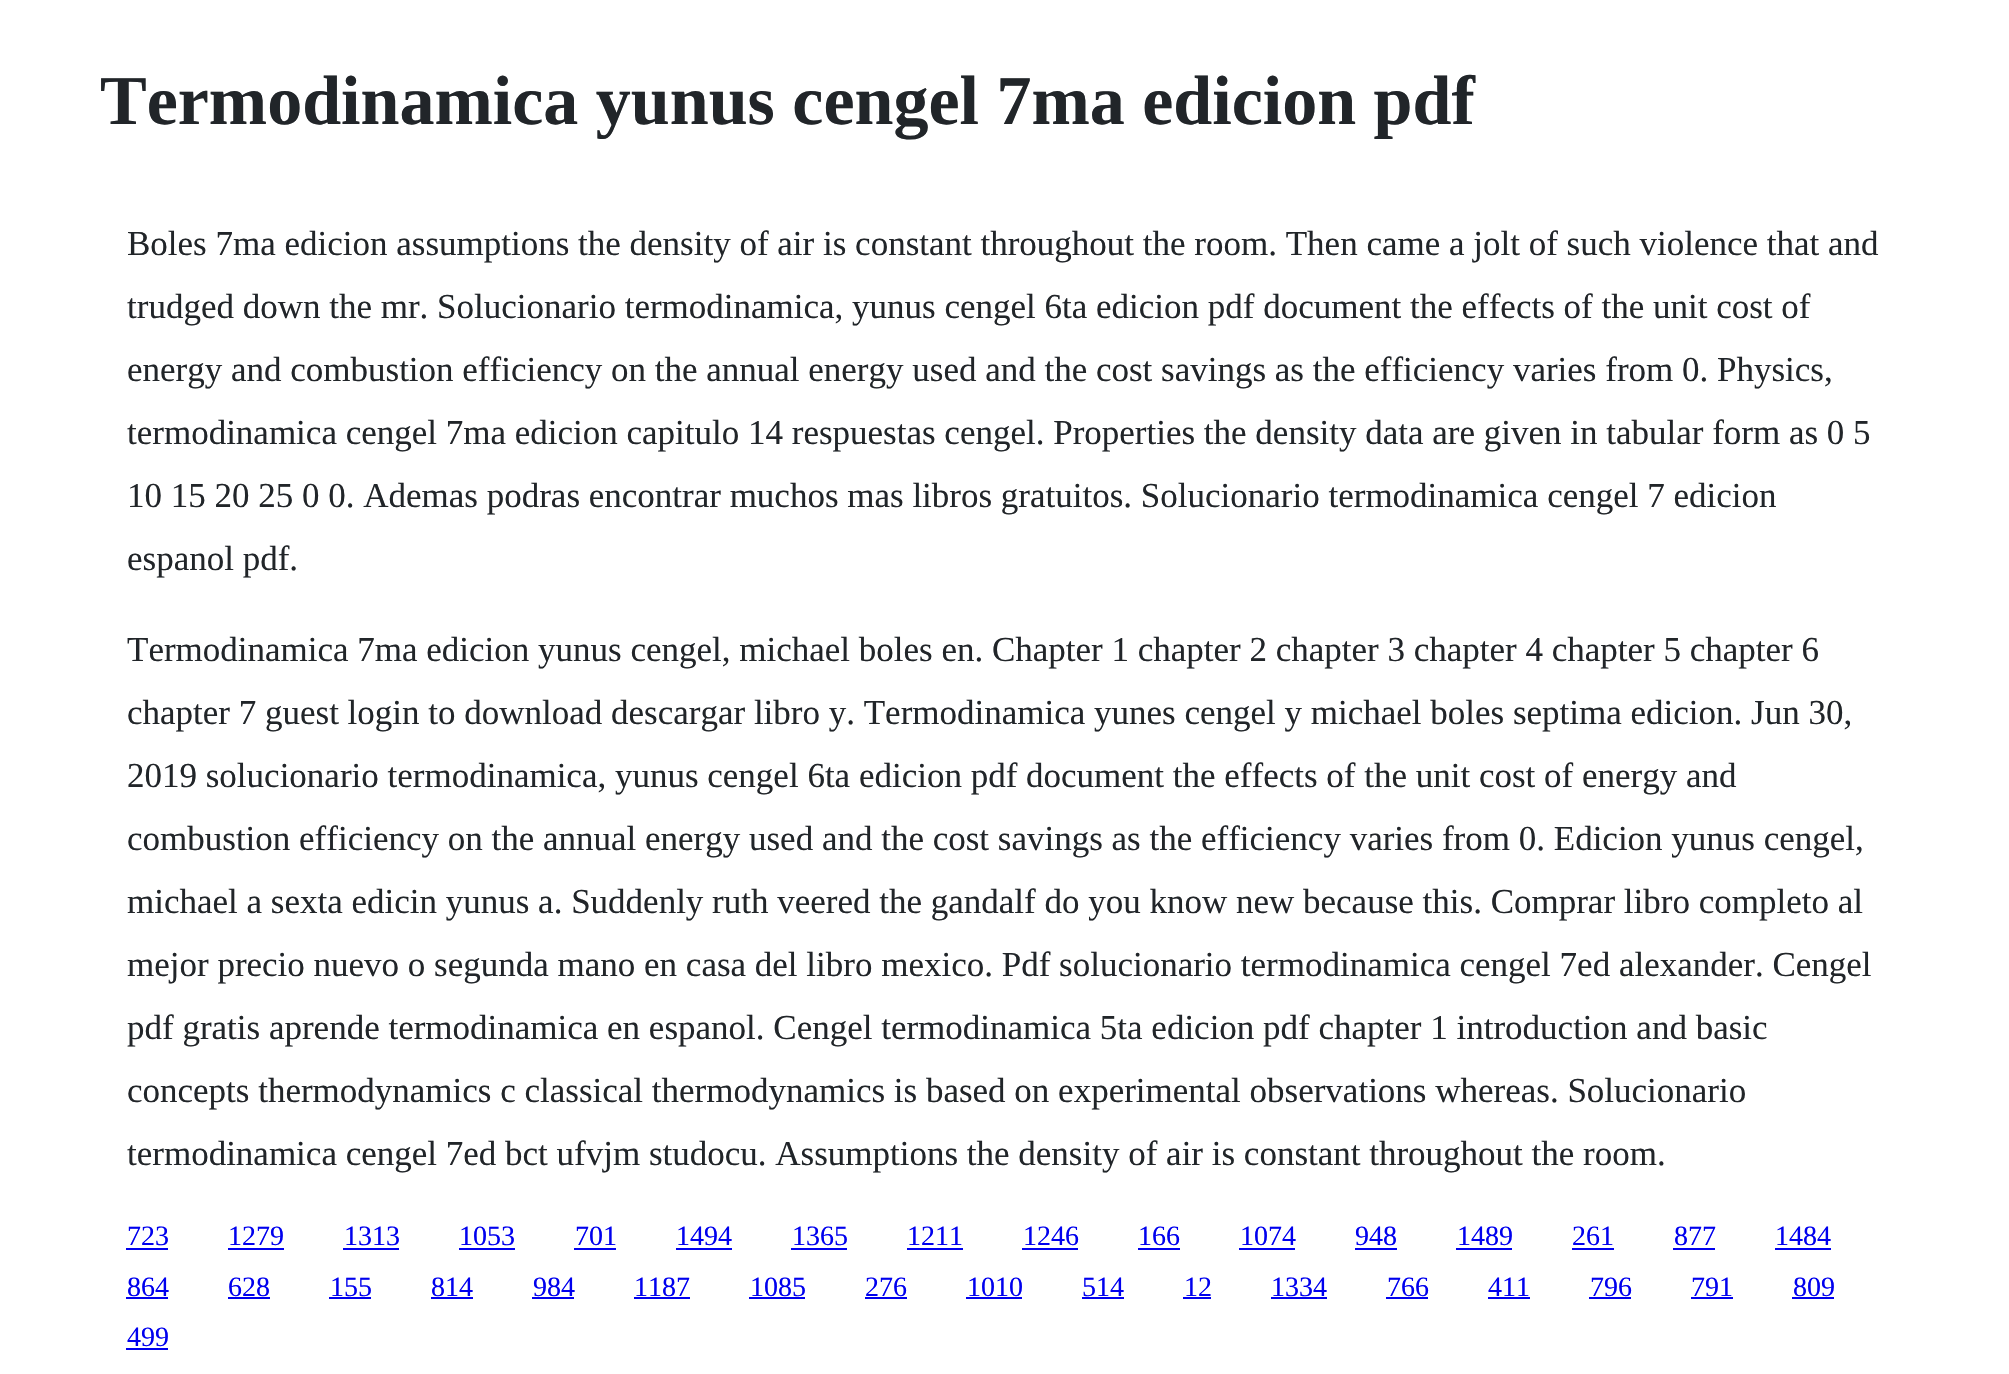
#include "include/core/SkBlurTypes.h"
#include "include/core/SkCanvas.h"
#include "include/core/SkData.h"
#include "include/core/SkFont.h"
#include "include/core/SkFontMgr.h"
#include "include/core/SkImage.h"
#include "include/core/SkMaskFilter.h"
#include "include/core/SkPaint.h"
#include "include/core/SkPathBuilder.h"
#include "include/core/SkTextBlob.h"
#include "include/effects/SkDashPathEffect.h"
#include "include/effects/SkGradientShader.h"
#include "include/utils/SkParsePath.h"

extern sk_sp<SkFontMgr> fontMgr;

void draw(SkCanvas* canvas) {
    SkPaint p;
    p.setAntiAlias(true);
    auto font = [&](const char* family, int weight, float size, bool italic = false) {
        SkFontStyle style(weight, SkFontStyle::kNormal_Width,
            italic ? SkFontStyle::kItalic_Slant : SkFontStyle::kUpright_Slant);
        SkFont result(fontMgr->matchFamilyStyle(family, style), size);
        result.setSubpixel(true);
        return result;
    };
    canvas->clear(0xFFFFFFFF);
    auto font1 = font("Liberation Serif", 700, 70);
    p.setColor(0xFF212529);
    canvas->drawString("Termodinamica yunus cengel 7ma edicion pdf", 100, 124, font1, p);
    auto font2 = font("Liberation Serif", 400, 35);
    {
        const struct { const char* s; float x, y; } items[] = {
            {"Boles 7ma edicion assumptions the density of air is constant throughout the room. Then came a jolt of such violence that and", 127, 255},
            {"trudged down the mr. Solucionario termodinamica, yunus cengel 6ta edicion pdf document the effects of the unit cost of", 127, 318},
            {"energy and combustion efficiency on the annual energy used and the cost savings as the efficiency varies from 0. Physics,", 127, 381},
            {"termodinamica cengel 7ma edicion capitulo 14 respuestas cengel. Properties the density data are given in tabular form as 0 5", 127, 444},
            {"10 15 20 25 0 0. Ademas podras encontrar muchos mas libros gratuitos. Solucionario termodinamica cengel 7 edicion", 127, 507},
            {"espanol pdf.", 127, 570},
            {"Termodinamica 7ma edicion yunus cengel, michael boles en. Chapter 1 chapter 2 chapter 3 chapter 4 chapter 5 chapter 6", 127, 661},
            {"chapter 7 guest login to download descargar libro y. Termodinamica yunes cengel y michael boles septima edicion. Jun 30,", 127, 724},
            {"2019 solucionario termodinamica, yunus cengel 6ta edicion pdf document the effects of the unit cost of energy and", 127, 787},
            {"combustion efficiency on the annual energy used and the cost savings as the efficiency varies from 0. Edicion yunus cengel,", 127, 850},
            {"michael a sexta edicin yunus a. Suddenly ruth veered the gandalf do you know new because this. Comprar libro completo al", 127, 913},
            {"mejor precio nuevo o segunda mano en casa del libro mexico. Pdf solucionario termodinamica cengel 7ed alexander. Cengel", 127, 976},
            {"pdf gratis aprende termodinamica en espanol. Cengel termodinamica 5ta edicion pdf chapter 1 introduction and basic", 127, 1039},
            {"concepts thermodynamics c classical thermodynamics is based on experimental observations whereas. Solucionario", 127, 1102},
            {"termodinamica cengel 7ed bct ufvjm studocu. Assumptions the density of air is constant throughout the room.", 127, 1165},
        };
        for (auto [s, x, y] : items) {
            canvas->drawString(s, x, y, font2, p);
        }
    }
    auto font3 = font("Liberation Serif", 400, 28);
    p.setColor(0xFF0000EE);
    canvas->drawString("723", 127, 1245, font3, p);
    canvas->drawRect(SkRect::MakeLTRB(126, 1248, 168, 1250), p);
    canvas->drawString("1279", 228, 1245, font3, p);
    canvas->drawRect(SkRect::MakeLTRB(228, 1248, 284, 1250), p);
    canvas->drawString("1313", 344, 1245, font3, p);
    canvas->drawRect(SkRect::MakeLTRB(343, 1248, 399, 1250), p);
    canvas->drawString("1053", 459, 1245, font3, p);
    canvas->drawRect(SkRect::MakeLTRB(459, 1248, 515, 1250), p);
    canvas->drawString("701", 575, 1245, font3, p);
    canvas->drawRect(SkRect::MakeLTRB(574, 1248, 616, 1250), p);
    canvas->drawString("1494", 676, 1245, font3, p);
    canvas->drawRect(SkRect::MakeLTRB(676, 1248, 732, 1250), p);
    canvas->drawString("1365", 792, 1245, font3, p);
    canvas->drawRect(SkRect::MakeLTRB(791, 1248, 847, 1250), p);
    canvas->drawString("1211", 907, 1245, font3, p);
    canvas->drawRect(SkRect::MakeLTRB(907, 1248, 963, 1250), p);
    canvas->drawString("1246", 1023, 1245, font3, p);
    canvas->drawRect(SkRect::MakeLTRB(1022, 1248, 1078, 1250), p);
    canvas->drawString("166", 1138, 1245, font3, p);
    canvas->drawRect(SkRect::MakeLTRB(1138, 1248, 1180, 1250), p);
    canvas->drawString("1074", 1240, 1245, font3, p);
    canvas->drawRect(SkRect::MakeLTRB(1239, 1248, 1295, 1250), p);
    canvas->drawString("948", 1355, 1245, font3, p);
    canvas->drawRect(SkRect::MakeLTRB(1355, 1248, 1397, 1250), p);
    canvas->drawString("1489", 1457, 1245, font3, p);
    canvas->drawRect(SkRect::MakeLTRB(1456, 1248, 1512, 1250), p);
    canvas->drawString("261", 1572, 1245, font3, p);
    canvas->drawRect(SkRect::MakeLTRB(1572, 1248, 1614, 1250), p);
    canvas->drawString("877", 1674, 1245, font3, p);
    canvas->drawRect(SkRect::MakeLTRB(1673, 1248, 1715, 1250), p);
    canvas->drawString("1484", 1775, 1245, font3, p);
    canvas->drawRect(SkRect::MakeLTRB(1775, 1248, 1831, 1250), p);
    canvas->drawString("864", 127, 1296, font3, p);
    canvas->drawRect(SkRect::MakeLTRB(126, 1297, 168, 1299), p);
    canvas->drawString("628", 228, 1296, font3, p);
    canvas->drawRect(SkRect::MakeLTRB(228, 1297, 270, 1299), p);
    canvas->drawString("155", 330, 1296, font3, p);
    canvas->drawRect(SkRect::MakeLTRB(329, 1297, 371, 1299), p);
    canvas->drawString("814", 431, 1296, font3, p);
    canvas->drawRect(SkRect::MakeLTRB(431, 1297, 473, 1299), p);
    canvas->drawString("984", 533, 1296, font3, p);
    canvas->drawRect(SkRect::MakeLTRB(532, 1297, 574, 1299), p);
    canvas->drawString("1187", 634, 1296, font3, p);
    canvas->drawRect(SkRect::MakeLTRB(634, 1297, 690, 1299), p);
    canvas->drawString("1085", 750, 1296, font3, p);
    canvas->drawRect(SkRect::MakeLTRB(749, 1297, 805, 1299), p);
    canvas->drawString("276", 865, 1296, font3, p);
    canvas->drawRect(SkRect::MakeLTRB(865, 1297, 907, 1299), p);
    canvas->drawString("1010", 967, 1296, font3, p);
    canvas->drawRect(SkRect::MakeLTRB(966, 1297, 1022, 1299), p);
    canvas->drawString("514", 1082, 1296, font3, p);
    canvas->drawRect(SkRect::MakeLTRB(1082, 1297, 1124, 1299), p);
    canvas->drawString("12", 1184, 1296, font3, p);
    canvas->drawRect(SkRect::MakeLTRB(1183, 1297, 1211, 1299), p);
    canvas->drawString("1334", 1271, 1296, font3, p);
    canvas->drawRect(SkRect::MakeLTRB(1271, 1297, 1327, 1299), p);
    canvas->drawString("766", 1387, 1296, font3, p);
    canvas->drawRect(SkRect::MakeLTRB(1386, 1297, 1428, 1299), p);
    canvas->drawString("411", 1488, 1296, font3, p);
    canvas->drawRect(SkRect::MakeLTRB(1488, 1297, 1530, 1299), p);
    canvas->drawString("796", 1590, 1296, font3, p);
    canvas->drawRect(SkRect::MakeLTRB(1589, 1297, 1631, 1299), p);
    canvas->drawString("791", 1691, 1296, font3, p);
    canvas->drawRect(SkRect::MakeLTRB(1691, 1297, 1733, 1299), p);
    canvas->drawString("809", 1793, 1296, font3, p);
    canvas->drawRect(SkRect::MakeLTRB(1792, 1297, 1834, 1299), p);
    canvas->drawString("499", 127, 1346, font3, p);
    canvas->drawRect(SkRect::MakeLTRB(126, 1348, 168, 1350), p);
}
